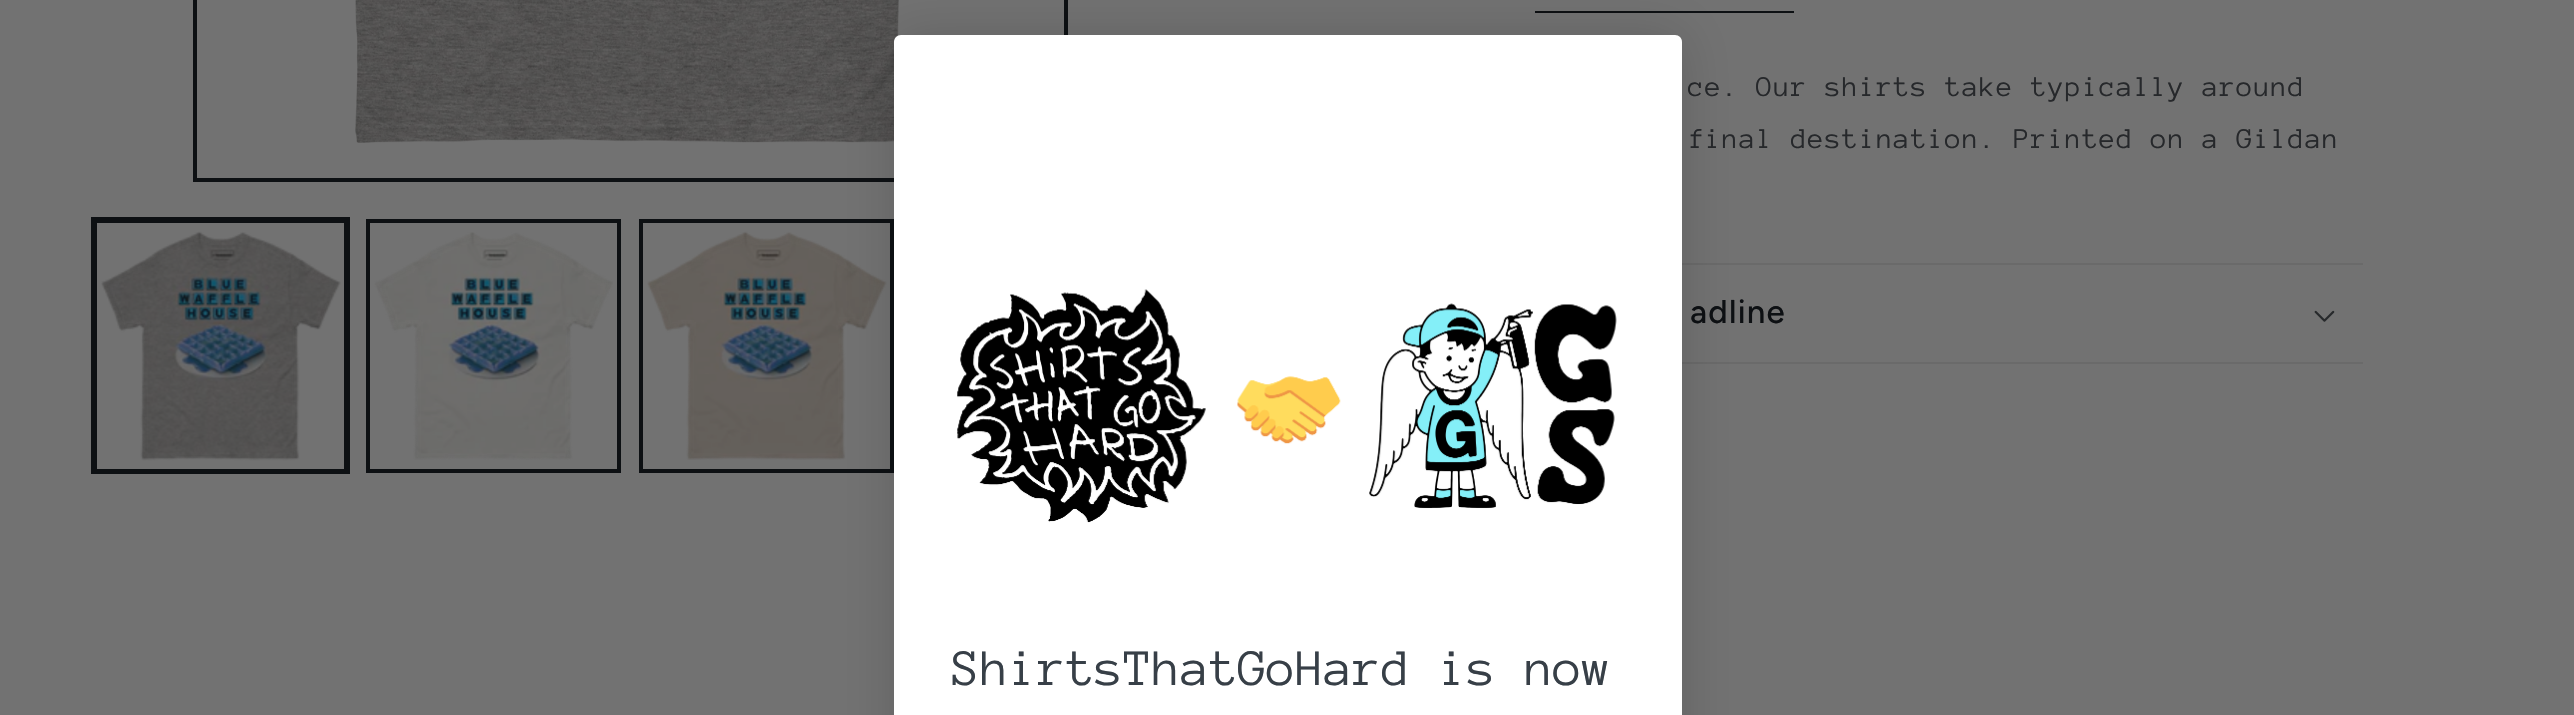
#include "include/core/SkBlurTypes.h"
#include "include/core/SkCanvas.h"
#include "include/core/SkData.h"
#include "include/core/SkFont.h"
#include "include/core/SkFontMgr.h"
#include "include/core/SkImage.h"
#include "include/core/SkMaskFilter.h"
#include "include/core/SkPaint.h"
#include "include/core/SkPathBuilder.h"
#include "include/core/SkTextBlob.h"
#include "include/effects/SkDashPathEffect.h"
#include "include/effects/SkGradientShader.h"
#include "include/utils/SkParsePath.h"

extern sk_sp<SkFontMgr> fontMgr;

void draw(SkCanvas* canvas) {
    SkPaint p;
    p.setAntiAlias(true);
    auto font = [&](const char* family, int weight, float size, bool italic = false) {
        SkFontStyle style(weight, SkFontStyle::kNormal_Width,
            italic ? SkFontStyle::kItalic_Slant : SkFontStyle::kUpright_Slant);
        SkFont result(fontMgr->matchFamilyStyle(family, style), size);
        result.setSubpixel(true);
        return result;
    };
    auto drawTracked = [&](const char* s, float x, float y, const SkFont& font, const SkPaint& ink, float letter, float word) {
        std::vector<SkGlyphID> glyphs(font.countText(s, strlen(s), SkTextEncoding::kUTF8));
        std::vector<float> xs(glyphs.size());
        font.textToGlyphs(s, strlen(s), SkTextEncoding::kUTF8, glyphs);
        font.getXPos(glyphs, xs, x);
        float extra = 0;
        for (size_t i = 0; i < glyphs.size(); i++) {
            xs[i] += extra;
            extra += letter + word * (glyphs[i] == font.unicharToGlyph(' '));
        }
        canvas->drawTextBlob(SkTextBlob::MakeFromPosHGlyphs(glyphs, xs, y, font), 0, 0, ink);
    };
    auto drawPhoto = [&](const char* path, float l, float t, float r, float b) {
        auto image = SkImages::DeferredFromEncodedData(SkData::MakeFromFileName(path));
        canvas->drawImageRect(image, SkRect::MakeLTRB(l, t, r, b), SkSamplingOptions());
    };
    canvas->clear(0xFF727272);
    p.setStyle(SkPaint::kStroke_Style);
    p.setStrokeWidth(4);
    p.setColor(0xFF0D1013);
    canvas->drawRect(SkRect::MakeLTRB(195, -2, 1066, 180), p);
    drawPhoto("media/1.png", 355, 0, 899, 143);
    p.setStrokeWidth(2);
    canvas->drawRect(SkRect::MakeLTRB(92, 218, 349, 473), p);
    p.setStrokeWidth(4);
    canvas->drawRect(SkRect::MakeLTRB(95, 221, 346, 471), p);
    drawPhoto("media/2.png", 101, 231, 341, 461);
    canvas->drawRect(SkRect::MakeLTRB(368, 221, 619, 471), p);
    drawPhoto("media/3.png", 374, 232, 613, 460);
    canvas->drawRect(SkRect::MakeLTRB(641, 221, 892, 471), p);
    drawPhoto("media/4.png", 647, 231, 887, 460);
    p.setStyle(SkPaint::kFill_Style);
    canvas->drawRect(SkRect::MakeLTRB(1535, 11, 1794, 13), p);
    auto font1 = font("Anonymous Pro", 400, 29.4f);
    p.setColor(0xFF26282B);
    drawTracked("ce. Our shirts take typically around", 1688, 96, font1, p, 1.1f, 0);
    drawTracked("final destination. Printed on a Gildan", 1688, 148, font1, p, 1.1f, 0);
    p.setColor(0xFF6A6A6A);
    canvas->drawRect(SkRect::MakeLTRB(1682, 263, 2363, 265), p);
    canvas->drawRect(SkRect::MakeLTRB(1682, 362, 2363, 364), p);
    auto font2 = font("Figtree", 500, 33);
    p.setColor(0xFF0D1013);
    drawTracked("adline", 1690, 323, font2, p, 1.25f, 0);
    drawPhoto("media/5.png", 2314, 310, 2335, 322);
    p.setColor(0x26000000);
    p.setMaskFilter(SkMaskFilter::MakeBlur(kNormal_SkBlurStyle, 26));
    canvas->drawRoundRect(SkRect::MakeLTRB(894, 35, 1682, 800), 7, 7, p);
    p.setMaskFilter(nullptr);
    p.setColor(0xFFFFFFFF);
    canvas->drawPath(SkPathBuilder().moveTo(901, 35).lineTo(1675, 35).cubicTo(1679, 35, 1682, 38, 1682, 42).lineTo(1682, 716).lineTo(894, 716).lineTo(894, 42).cubicTo(894, 38, 897, 35, 901, 35).close().detach(), p);
    drawPhoto("media/6.png", 957, 289, 1617, 523);
    auto font3 = font("Anonymous Pro", 400, 52.5f);
    p.setColor(0xFF373F47);
    canvas->drawString("ShirtsThatGoHard is now", 952, 685, font3, p);
}
